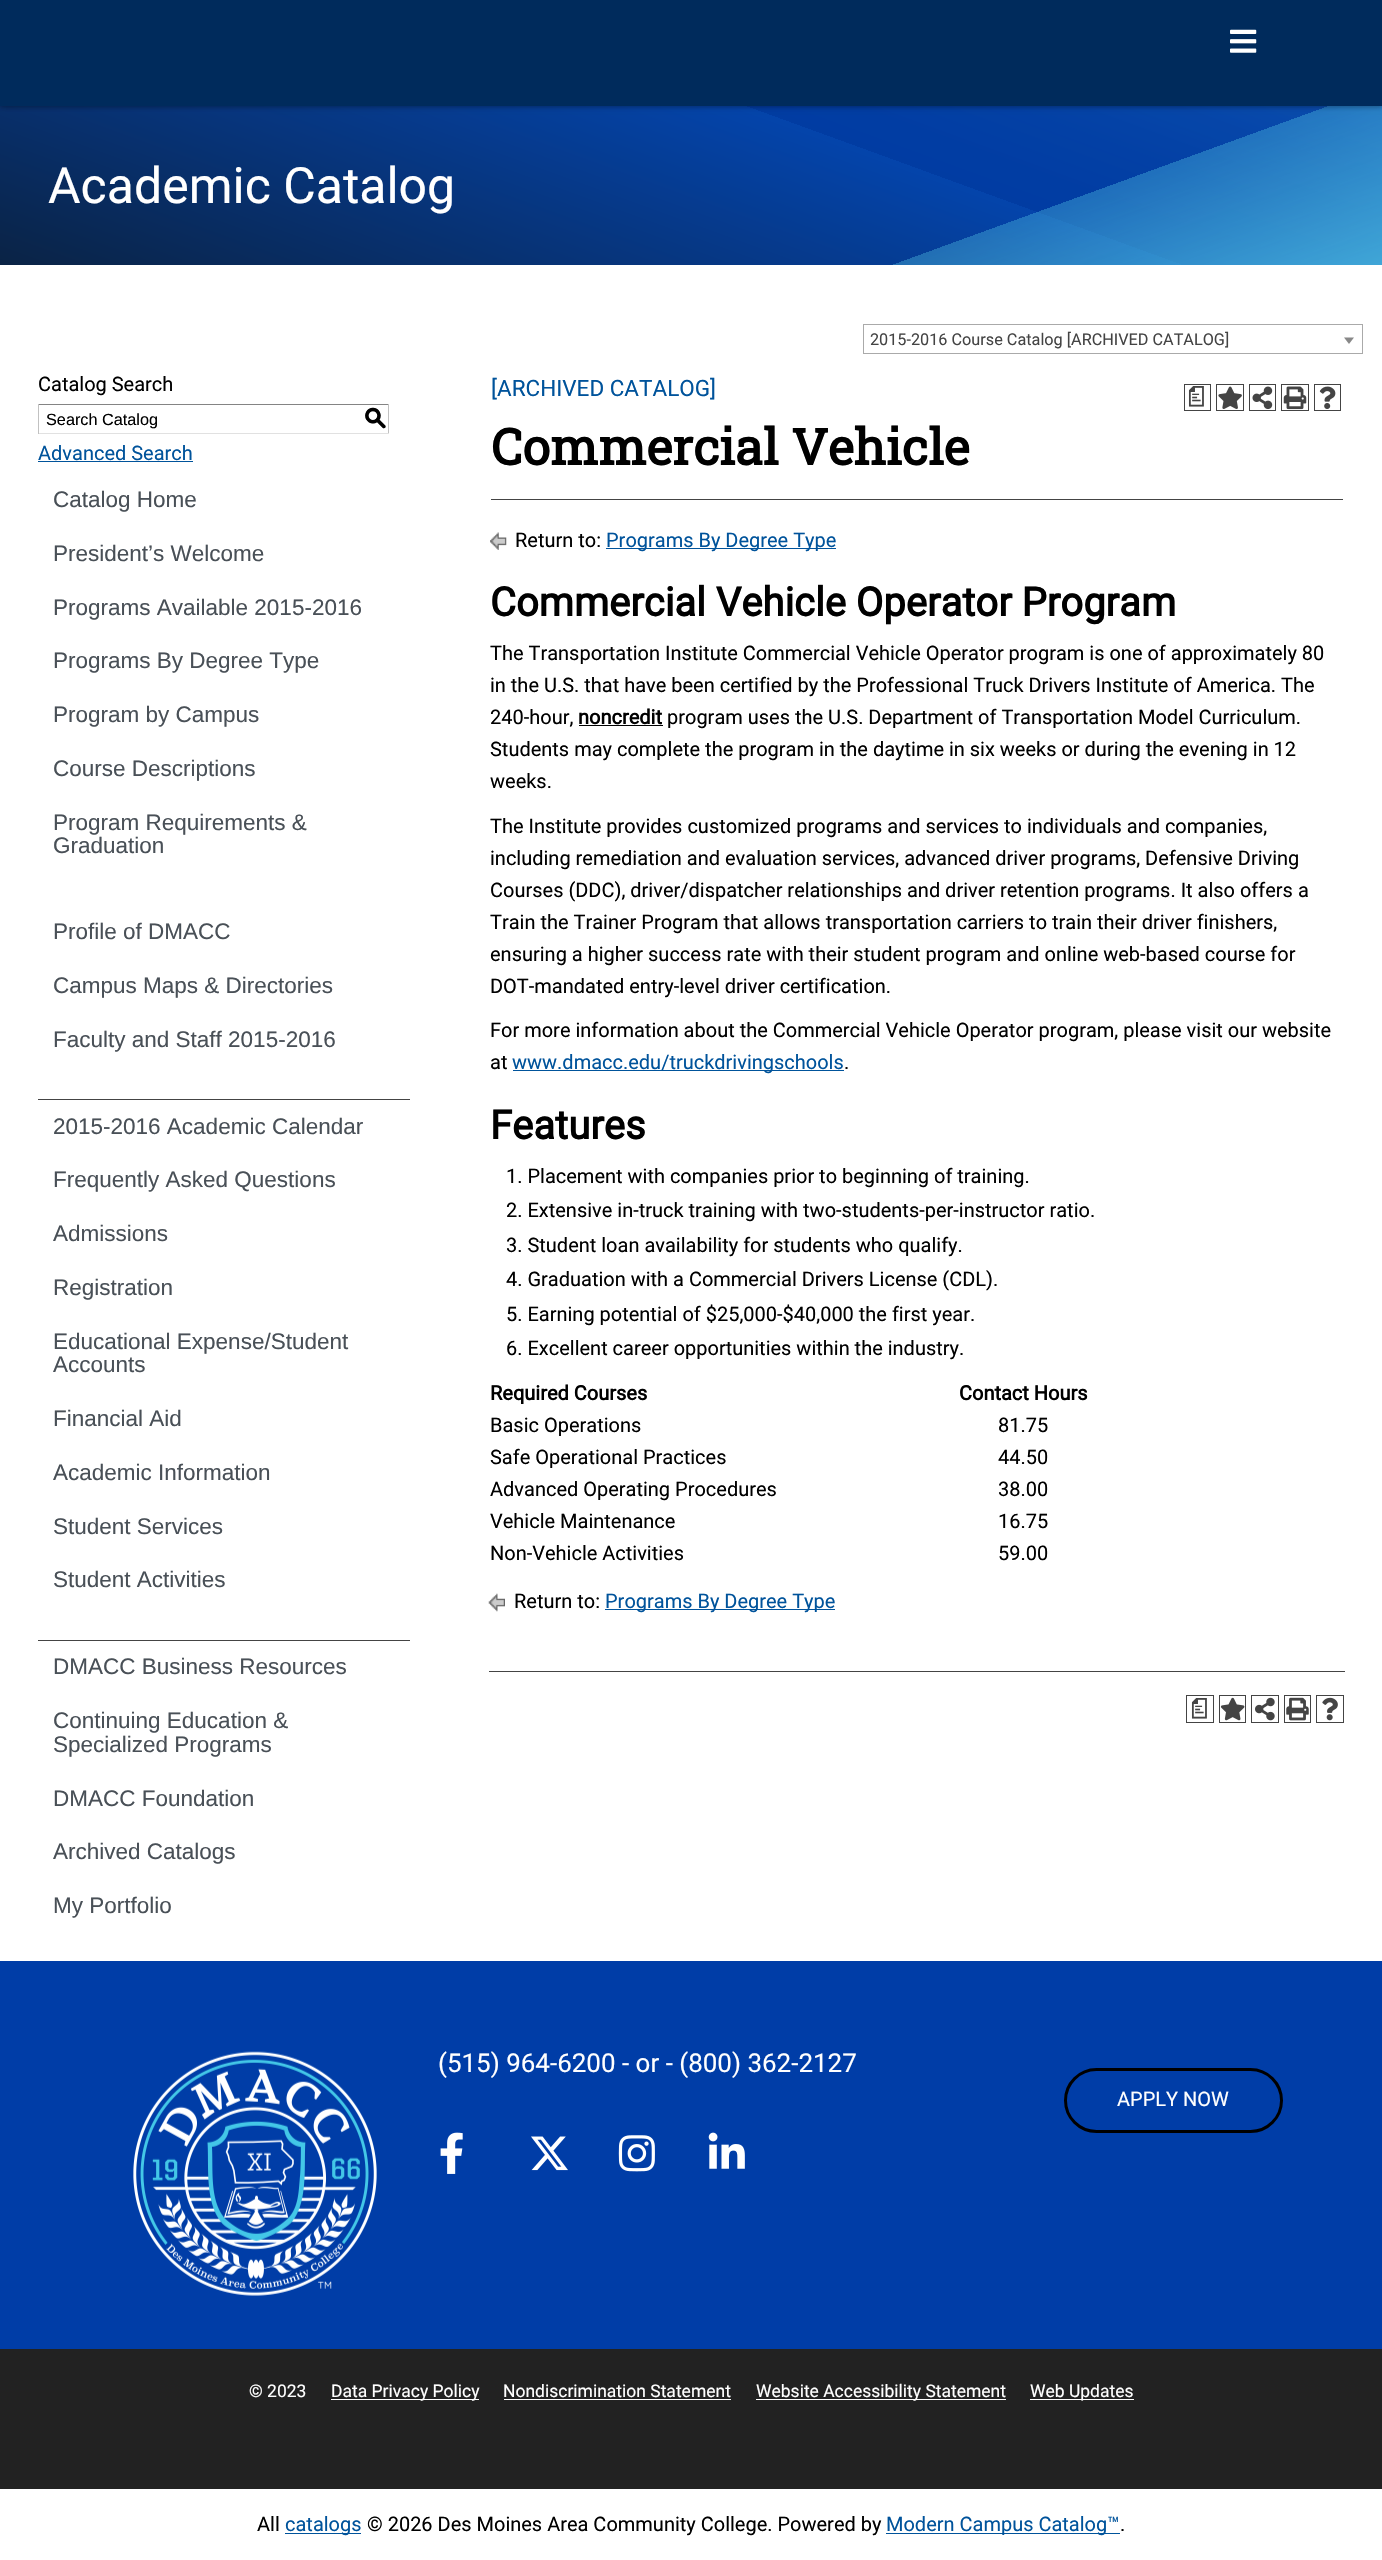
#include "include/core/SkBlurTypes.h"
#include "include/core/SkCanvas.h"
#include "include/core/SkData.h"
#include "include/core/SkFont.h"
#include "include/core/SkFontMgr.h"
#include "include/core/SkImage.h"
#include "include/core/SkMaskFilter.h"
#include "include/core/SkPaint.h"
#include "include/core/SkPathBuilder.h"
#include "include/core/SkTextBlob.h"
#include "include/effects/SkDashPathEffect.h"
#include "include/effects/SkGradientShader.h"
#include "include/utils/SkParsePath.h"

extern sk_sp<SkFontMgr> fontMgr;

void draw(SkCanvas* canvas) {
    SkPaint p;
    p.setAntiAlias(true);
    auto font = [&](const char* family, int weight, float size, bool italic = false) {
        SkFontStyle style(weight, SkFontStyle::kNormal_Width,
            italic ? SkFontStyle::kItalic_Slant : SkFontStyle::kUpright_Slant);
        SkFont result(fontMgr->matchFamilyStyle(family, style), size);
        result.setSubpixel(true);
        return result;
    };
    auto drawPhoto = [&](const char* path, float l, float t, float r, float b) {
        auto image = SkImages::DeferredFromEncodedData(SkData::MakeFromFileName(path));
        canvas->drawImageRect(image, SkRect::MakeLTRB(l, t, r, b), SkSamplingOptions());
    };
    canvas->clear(0xFFFFFFFF);
    {
        const SkColor colors[] = {0xFF0A2345, 0xFF0444AB, 0xFF003DA8, 0xFF003DA8};
        const float stops[] = {0, 0.65f, 0.65f, 1};
        const SkPoint ends[] = {{585, 478}, {798, -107}};
        p.setShader(SkGradientShader::MakeLinear(ends, colors, stops, 4, SkTileMode::kClamp));
        p.setAlpha(255);
    }
    canvas->drawRect(SkRect::MakeLTRB(0, 106, 1382, 265), p);
    {
        const SkColor colors[] = {0x00000000, 0x000A2240, 0x0D0A2240, 0x1F54C8E8};
        const float stops[] = {0, 0.65f, 0.65f, 1};
        const SkPoint ends[] = {{585, 478}, {798, -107}};
        p.setShader(SkGradientShader::MakeLinear(ends, colors, stops, 4, SkTileMode::kClamp));
        p.setAlpha(255);
    }
    canvas->drawRect(SkRect::MakeLTRB(747, 106, 1382, 265), p);
    {
        const SkColor colors[] = {0x00000000, 0x0054C8E8, 0x5954C8E8, 0xBF54C8E8};
        const float stops[] = {0, 0.73f, 0.73f, 1};
        const SkPoint ends[] = {{585, -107}, {798, 478}};
        p.setShader(SkGradientShader::MakeLinear(ends, colors, stops, 4, SkTileMode::kClamp));
        p.setAlpha(255);
    }
    canvas->drawRect(SkRect::MakeLTRB(893, 106, 1382, 265), p);
    p.setShader(nullptr);
    p.setColor(0x40000000);
    p.setMaskFilter(SkMaskFilter::MakeBlur(kNormal_SkBlurStyle, 3));
    canvas->drawRect(SkRect::MakeLTRB(0, 0, 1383, 106), p);
    p.setMaskFilter(nullptr);
    p.setMaskFilter(SkMaskFilter::MakeBlur(kNormal_SkBlurStyle, 3));
    canvas->drawRect(SkRect::MakeLTRB(0, 0, 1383, 106), p);
    p.setMaskFilter(nullptr);
    p.setColor(0xFF002B5C);
    canvas->drawRect(SkRect::MakeLTRB(0, 0, 1382, 106), p);
    drawPhoto("media/1.png", 1230, 29, 1257, 53);
    auto font1 = font("Roboto", 400, 50);
    p.setColor(0xFFFFFFFF);
    canvas->drawString("Academic Catalog", 48, 203, font1, p);
    p.setStyle(SkPaint::kStroke_Style);
    p.setStrokeWidth(1);
    p.setColor(0xFFAAAAAA);
    canvas->drawRect(SkRect::MakeLTRB(863.5f, 324.5f, 1362.5f, 353.5f), p);
    auto font2 = font("Roboto", 400, 16.25f);
    p.setStyle(SkPaint::kFill_Style);
    p.setColor(0xFF444444);
    canvas->drawString("2015-2016 Course Catalog [ARCHIVED CATALOG]", 870, 345, font2, p);
    p.setColor(0xFF888888);
    canvas->drawPath(SkPathBuilder().moveTo(1344, 337.5f).lineTo(1354, 337.5f).lineTo(1349, 344).close().detach(), p);
    auto font3 = font("Roboto", 400, 20);
    p.setColor(0xFF000000);
    canvas->drawString("Catalog Search", 38, 391, font3, p);
    {
        const struct { float l, t, r, b; SkColor color; } items[] = {
            {38, 404, 389, 405, 0xFF848484},
            {388, 404, 389, 434, 0xFFC1C1C1},
            {38, 433, 389, 434, 0xFFE1E1E1},
            {38, 404, 39, 434, 0xFFC1C1C1},
        };
        for (auto [l, t, r, b, color] : items) {
            p.setColor(color);
            canvas->drawRect(SkRect::MakeLTRB(l, t, r, b), p);
        }
    }
    auto font4 = font("Liberation Sans", 400, 16.25f);
    p.setColor(0xFF000000);
    canvas->drawString("Search Catalog", 46, 425, font4, p);
    auto font5 = font("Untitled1", 500, 22.5f);
    canvas->drawString("S", 364, 425, font5, p);
    p.setColor(0xFF00539B);
    canvas->drawString("Advanced Search", 38, 460, font3, p);
    canvas->drawRect(SkRect::MakeLTRB(38, 461, 193, 462), p);
    auto font6 = font("Liberation Sans", 400, 22.5f);
    p.setColor(0xFF495057);
    {
        const struct { const char* s; float x, y; } items[] = {
            {"Catalog Home", 53, 507},
            {"President’s Welcome", 53, 561},
            {"Programs Available 2015-2016", 53, 615},
            {"Programs By Degree Type", 53, 668},
            {"Program by Campus", 53, 722},
            {"Course Descriptions", 53, 776},
            {"Program Requirements &", 53, 830},
            {"Graduation", 53, 853},
            {"Profile of DMACC", 53, 939},
            {"Campus Maps & Directories", 53, 993},
            {"Faculty and Staff 2015-2016", 53, 1047},
        };
        for (auto [s, x, y] : items) {
            canvas->drawString(s, x, y, font6, p);
        }
    }
    p.setColor(0xFF444444);
    canvas->drawRect(SkRect::MakeLTRB(38, 1099, 410, 1100), p);
    p.setColor(0xFF495057);
    {
        const struct { const char* s; float x, y; } items[] = {
            {"2015-2016 Academic Calendar", 53, 1134},
            {"Frequently Asked Questions", 53, 1187},
            {"Admissions", 53, 1241},
            {"Registration", 53, 1295},
            {"Educational Expense/Student", 53, 1349},
            {"Accounts", 53, 1372},
            {"Financial Aid", 53, 1426},
            {"Academic Information", 53, 1480},
            {"Student Services", 53, 1534},
            {"Student Activities", 53, 1587},
        };
        for (auto [s, x, y] : items) {
            canvas->drawString(s, x, y, font6, p);
        }
    }
    p.setColor(0xFF444444);
    canvas->drawRect(SkRect::MakeLTRB(38, 1640, 410, 1641), p);
    p.setColor(0xFF495057);
    {
        const struct { const char* s; float x, y; } items[] = {
            {"DMACC Business Resources", 53, 1674},
            {"Continuing Education &", 53, 1728},
            {"Specialized Programs", 53, 1752},
            {"DMACC Foundation", 53, 1806},
            {"Archived Catalogs", 53, 1859},
            {"My Portfolio", 53, 1913},
        };
        for (auto [s, x, y] : items) {
            canvas->drawString(s, x, y, font6, p);
        }
    }
    auto font7 = font("Roboto", 400, 22.5f);
    p.setColor(0xFF00539B);
    canvas->drawString("[ARCHIVED CATALOG]", 491, 396, font7, p);
    p.setStyle(SkPaint::kStroke_Style);
    p.setColor(0xFF444444);
    canvas->drawRect(SkRect::MakeLTRB(1184.5f, 384.5f, 1210.5f, 410.5f), p);
    p.setStyle(SkPaint::kFill_Style);
    canvas->drawString("a", 1185, 403, font5, p);
    p.setStyle(SkPaint::kStroke_Style);
    canvas->drawRect(SkRect::MakeLTRB(1216.5f, 384.5f, 1243.5f, 410.5f), p);
    drawPhoto("media/2.png", 1218, 386, 1242, 409);
    canvas->drawRect(SkRect::MakeLTRB(1249.5f, 384.5f, 1275.5f, 410.5f), p);
    drawPhoto("media/3.png", 1252, 386, 1273, 410);
    canvas->drawRect(SkRect::MakeLTRB(1281.5f, 384.5f, 1308.5f, 410.5f), p);
    drawPhoto("media/4.png", 1283, 386, 1307, 410);
    canvas->drawRect(SkRect::MakeLTRB(1314.5f, 384.5f, 1340.5f, 410.5f), p);
    drawPhoto("media/5.png", 1319, 386, 1336, 409);
    auto font8 = font("Roboto Slab", 700, 50);
    p.setStyle(SkPaint::kFill_Style);
    p.setColor(0xFF000000);
    canvas->drawString("Commercial Vehicle", 491, 465, font8, p);
    p.setColor(0xFF444444);
    canvas->drawRect(SkRect::MakeLTRB(491, 499, 1343, 500), p);
    drawPhoto("media/6.png", 490, 532, 507, 550);
    p.setColor(0xFF000000);
    canvas->drawString("Return to:", 515, 547, font3, p);
    p.setColor(0xFF00539B);
    canvas->drawRect(SkRect::MakeLTRB(606, 548, 836, 549), p);
    canvas->drawString("Programs By Degree Type", 606, 547, font3, p);
    auto font9 = font("Roboto", 700, 40);
    p.setColor(0xFF000000);
    canvas->drawString("Commercial Vehicle Operator Program", 490, 616, font9, p);
    {
        const struct { const char* s; float x, y; } items[] = {
            {"The Transportation Institute Commercial Vehicle Operator program is one of approximately 80", 490, 660},
            {"in the U.S. that have been certified by the Professional Truck Drivers Institute of America. The", 490, 692},
            {"240-hour,", 490, 724},
        };
        for (auto [s, x, y] : items) {
            canvas->drawString(s, x, y, font3, p);
        }
    }
    auto font10 = font("Roboto", 700, 20);
    canvas->drawString("noncredit", 578, 724, font10, p);
    canvas->drawRect(SkRect::MakeLTRB(579, 725, 663, 726), p);
    {
        const struct { const char* s; float x, y; } items[] = {
            {"program uses the U.S. Department of Transportation Model Curriculum.", 667, 724},
            {"Students may complete the program in the daytime in six weeks or during the evening in 12", 490, 756},
            {"weeks.", 490, 788},
            {"The Institute provides customized programs and services to individuals and companies,", 490, 833},
            {"including remediation and evaluation services, advanced driver programs, Defensive Driving", 490, 865},
            {"Courses (DDC), driver/dispatcher relationships and driver retention programs. It also offers a", 490, 897},
            {"Train the Trainer Program that allows transportation carriers to train their driver finishers,", 490, 929},
            {"ensuring a higher success rate with their student program and online web-based course for", 490, 961},
            {"DOT-mandated entry-level driver certification.", 490, 993},
            {"For more information about the Commercial Vehicle Operator program, please visit our website", 490, 1037},
            {"at", 490, 1069},
        };
        for (auto [s, x, y] : items) {
            canvas->drawString(s, x, y, font3, p);
        }
    }
    p.setColor(0xFF00539B);
    canvas->drawRect(SkRect::MakeLTRB(513, 1070, 844, 1071), p);
    canvas->drawString("www.dmacc.edu/truckdrivingschools", 512, 1069, font3, p);
    p.setColor(0xFF000000);
    canvas->drawString(".", 844, 1069, font3, p);
    canvas->drawString("Features", 490, 1139, font9, p);
    {
        const struct { const char* s; float x, y; } items[] = {
            {"1. Placement with companies prior to beginning of training.", 506, 1183},
            {"2. Extensive in-truck training with two-students-per-instructor ratio.", 506, 1217},
            {"3. Student loan availability for students who qualify.", 506, 1252},
            {"4. Graduation with a Commercial Drivers License (CDL).", 506, 1286},
            {"5. Earning potential of $25,000-$40,000 the first year.", 506, 1321},
            {"6. Excellent career opportunities within the industry.", 506, 1355},
        };
        for (auto [s, x, y] : items) {
            canvas->drawString(s, x, y, font3, p);
        }
    }
    canvas->drawString("Required Courses", 490, 1400, font10, p);
    canvas->drawString("Contact Hours", 959, 1400, font10, p);
    {
        const struct { const char* s; float x, y; } items[] = {
            {"Basic Operations", 490, 1432},
            {"81.75", 998, 1432},
            {"Safe Operational Practices", 490, 1464},
            {"44.50", 998, 1464},
            {"Advanced Operating Procedures", 490, 1496},
            {"38.00", 998, 1496},
            {"Vehicle Maintenance", 490, 1528},
            {"16.75", 998, 1528},
            {"Non-Vehicle Activities", 490, 1560},
            {"59.00", 998, 1560},
        };
        for (auto [s, x, y] : items) {
            canvas->drawString(s, x, y, font3, p);
        }
    }
    drawPhoto("media/7.png", 488, 1593, 505, 1612);
    canvas->drawString("Return to:", 514, 1608, font3, p);
    p.setColor(0xFF00539B);
    canvas->drawRect(SkRect::MakeLTRB(605, 1609, 835, 1610), p);
    canvas->drawString("Programs By Degree Type", 605, 1608, font3, p);
    p.setColor(0xFF444444);
    canvas->drawRect(SkRect::MakeLTRB(489, 1671, 1345, 1672), p);
    p.setStyle(SkPaint::kStroke_Style);
    canvas->drawRect(SkRect::MakeLTRB(1186.5f, 1695.5f, 1213.5f, 1722.5f), p);
    p.setStyle(SkPaint::kFill_Style);
    canvas->drawString("a", 1188, 1715, font5, p);
    p.setStyle(SkPaint::kStroke_Style);
    canvas->drawRect(SkRect::MakeLTRB(1219.5f, 1695.5f, 1245.5f, 1722.5f), p);
    drawPhoto("media/8.png", 1220, 1697, 1245, 1721);
    canvas->drawRect(SkRect::MakeLTRB(1251.5f, 1695.5f, 1278.5f, 1722.5f), p);
    drawPhoto("media/9.png", 1255, 1697, 1275, 1721);
    canvas->drawRect(SkRect::MakeLTRB(1284.5f, 1695.5f, 1310.5f, 1722.5f), p);
    drawPhoto("media/10.png", 1286, 1697, 1309, 1721);
    canvas->drawRect(SkRect::MakeLTRB(1316.5f, 1695.5f, 1343.5f, 1722.5f), p);
    drawPhoto("media/11.png", 1322, 1697, 1338, 1721);
    p.setStyle(SkPaint::kFill_Style);
    p.setColor(0xFF003DA7);
    canvas->drawRect(SkRect::MakeLTRB(0, 1961, 1382, 2349), p);
    drawPhoto("media/12.png", 133, 2051, 377, 2296);
    auto font11 = font("Roboto", 400, 26);
    p.setColor(0xFFFFFFFF);
    canvas->drawString("(515) 964-6200 - or - (800) 362-2127", 438, 2072, font11, p);
    drawPhoto("media/13.png", 440, 2132, 463, 2174);
    drawPhoto("media/14.png", 531, 2136, 568, 2171);
    drawPhoto("media/15.png", 618, 2135, 655, 2172);
    drawPhoto("media/16.png", 708, 2132, 745, 2169);
    p.setStyle(SkPaint::kStroke_Style);
    p.setStrokeWidth(3);
    p.setColor(0xFF000000);
    canvas->drawRoundRect(SkRect::MakeLTRB(1065.5f, 2069.5f, 1281.5f, 2131.5f), 31, 31, p);
    p.setStyle(SkPaint::kFill_Style);
    p.setColor(0xFFFFFFFF);
    canvas->drawString("APPLY NOW", 1117, 2106, font3, p);
    p.setColor(0xFF222222);
    canvas->drawRect(SkRect::MakeLTRB(0, 2349, 1382, 2489), p);
    auto font12 = font("Roboto", 400, 17.5f);
    p.setColor(0xFFFFFFFF);
    canvas->drawString("© 2023", 249, 2397, font12, p);
    canvas->drawRect(SkRect::MakeLTRB(331, 2399, 479, 2400), p);
    canvas->drawString("Data Privacy Policy", 331, 2397, font12, p);
    canvas->drawString("Nondiscrimination Statement", 503, 2397, font12, p);
    canvas->drawRect(SkRect::MakeLTRB(504, 2399, 731, 2400), p);
    canvas->drawRect(SkRect::MakeLTRB(756, 2399, 1006, 2400), p);
    canvas->drawString("Website Accessibility Statement", 756, 2397, font12, p);
    canvas->drawRect(SkRect::MakeLTRB(1030, 2399, 1134, 2400), p);
    canvas->drawString("Web Updates", 1030, 2397, font12, p);
    p.setColor(0xFF000000);
    canvas->drawString("All", 257, 2531, font3, p);
    p.setColor(0xFF00539B);
    canvas->drawRect(SkRect::MakeLTRB(285, 2533, 361, 2534), p);
    canvas->drawString("catalogs", 285, 2531, font3, p);
    p.setColor(0xFF000000);
    canvas->drawString("© 2026 Des Moines Area Community College. Powered by", 367, 2531, font3, p);
    p.setColor(0xFF00539B);
    canvas->drawRect(SkRect::MakeLTRB(886, 2533, 1120, 2534), p);
    canvas->drawString("Modern Campus Catalog™", 886, 2531, font3, p);
    p.setColor(0xFF000000);
    canvas->drawString(".", 1120, 2531, font3, p);
}
